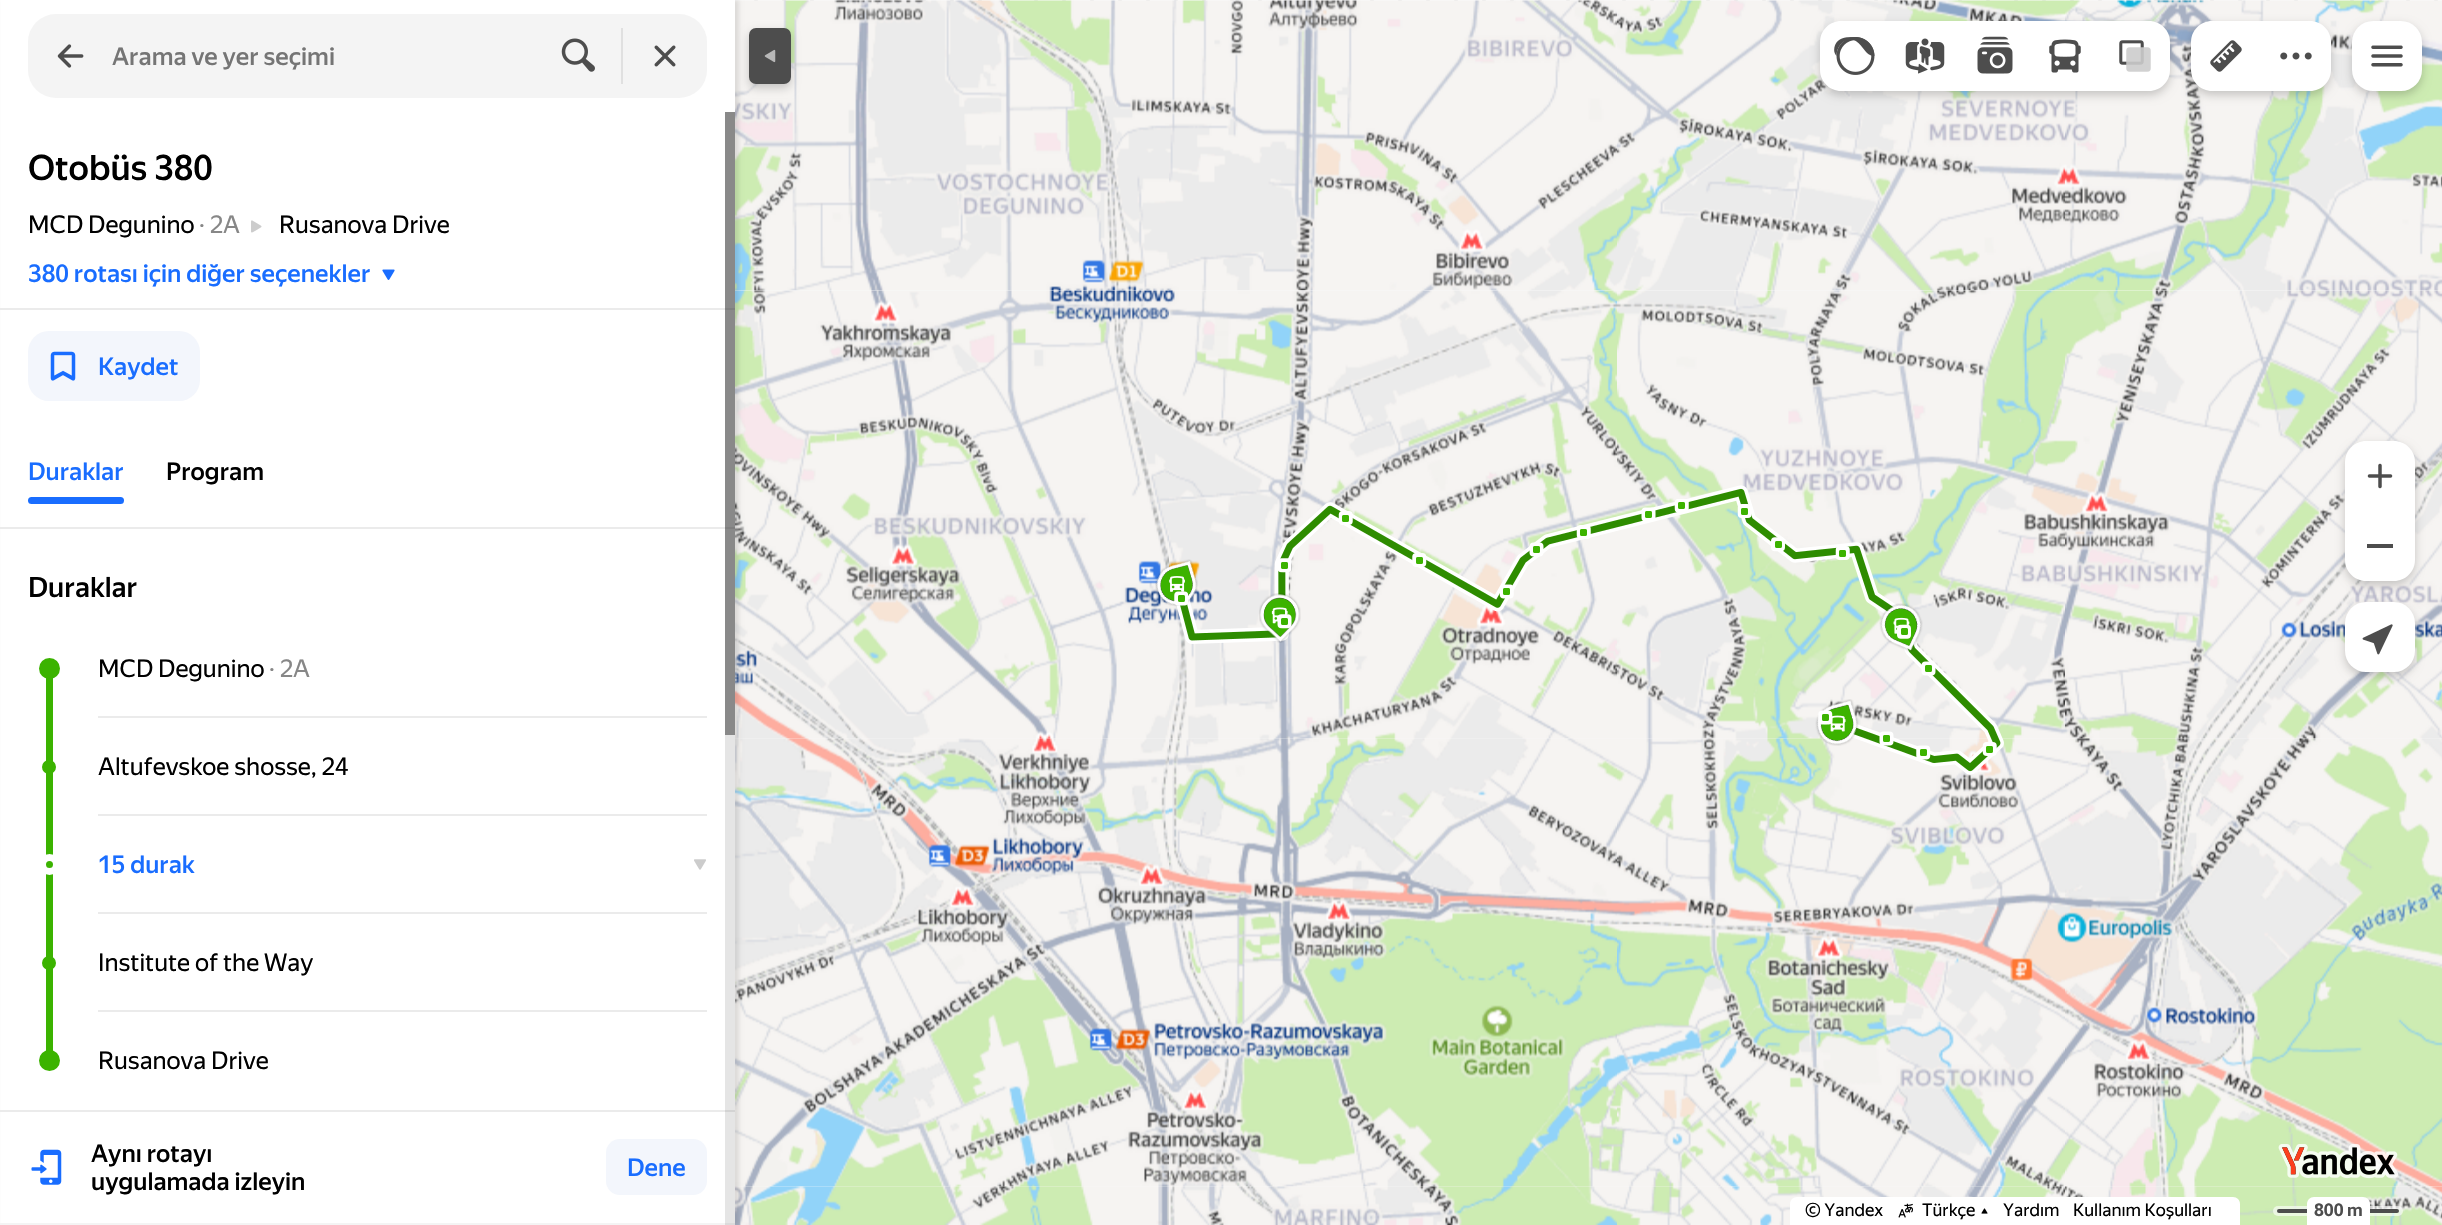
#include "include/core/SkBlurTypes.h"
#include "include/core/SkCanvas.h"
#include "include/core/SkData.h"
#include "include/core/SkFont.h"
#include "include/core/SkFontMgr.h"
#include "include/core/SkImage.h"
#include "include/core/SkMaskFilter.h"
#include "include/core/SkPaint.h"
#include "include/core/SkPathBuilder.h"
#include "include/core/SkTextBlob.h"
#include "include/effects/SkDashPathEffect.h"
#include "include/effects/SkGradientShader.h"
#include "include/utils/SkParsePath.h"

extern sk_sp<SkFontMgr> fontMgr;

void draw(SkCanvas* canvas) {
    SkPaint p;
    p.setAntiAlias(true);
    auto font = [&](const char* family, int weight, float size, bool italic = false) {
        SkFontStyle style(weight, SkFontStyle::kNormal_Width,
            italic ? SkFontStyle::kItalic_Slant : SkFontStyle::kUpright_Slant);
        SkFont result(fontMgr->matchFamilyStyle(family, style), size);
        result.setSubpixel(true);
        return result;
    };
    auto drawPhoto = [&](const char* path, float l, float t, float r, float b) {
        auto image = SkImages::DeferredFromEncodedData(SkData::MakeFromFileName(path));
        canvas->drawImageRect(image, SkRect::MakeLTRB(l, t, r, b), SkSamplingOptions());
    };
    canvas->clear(0xFFFFFFFF);
    drawPhoto("media/1.png", 735, 0, 2442, 1187);
    drawPhoto("media/6.png", 735, 290, 1169, 739);
    drawPhoto("media/2.png", 735, 0, 1169, 291);
    drawPhoto("media/3.png", 1169, 0, 1617, 291);
    drawPhoto("media/4.png", 1617, 0, 2065, 291);
    drawPhoto("media/9.png", 2065, 290, 2442, 739);
    drawPhoto("media/5.png", 2065, 0, 2442, 291);
    drawPhoto("media/7.png", 1169, 290, 1617, 739);
    drawPhoto("media/8.png", 1617, 290, 2065, 739);
    drawPhoto("media/10.png", 735, 738, 1169, 1187);
    drawPhoto("media/11.png", 1169, 738, 1617, 1187);
    drawPhoto("media/12.png", 1617, 738, 2065, 1187);
    drawPhoto("media/13.png", 2065, 738, 2442, 1187);
    drawPhoto("media/14.png", 735, 1186, 1169, 1225);
    drawPhoto("media/15.png", 1169, 1186, 1617, 1225);
    drawPhoto("media/16.png", 1617, 1186, 2065, 1225);
    drawPhoto("media/17.png", 2065, 1186, 2442, 1225);
    drawPhoto("media/18.png", 1176, 485, 2004, 775);
    drawPhoto("media/19.png", 1338, 511, 1353, 525);
    drawPhoto("media/20.png", 1641, 507, 1656, 521);
    drawPhoto("media/21.png", 1674, 499, 1689, 513);
    drawPhoto("media/22.png", 1737, 504, 1752, 518);
    drawPhoto("media/23.png", 1576, 525, 1591, 539);
    drawPhoto("media/24.png", 1155, 559, 1198, 606);
    drawPhoto("media/25.png", 1169, 576, 1185, 592);
    drawPhoto("media/26.png", 1278, 558, 1292, 573);
    drawPhoto("media/27.png", 1412, 553, 1427, 567);
    drawPhoto("media/28.png", 1499, 584, 1514, 599);
    drawPhoto("media/29.png", 1529, 542, 1544, 557);
    drawPhoto("media/30.png", 1771, 537, 1785, 552);
    drawPhoto("media/31.png", 1835, 546, 1850, 560);
    drawPhoto("media/32.png", 1174, 591, 1189, 606);
    drawPhoto("media/33.png", 1259, 593, 1301, 643);
    drawPhoto("media/34.png", 1271, 607, 1288, 624);
    drawPhoto("media/35.png", 1879, 603, 1923, 652);
    drawPhoto("media/36.png", 1893, 617, 1910, 634);
    drawPhoto("media/37.png", 1277, 614, 1292, 629);
    drawPhoto("media/38.png", 1897, 624, 1911, 639);
    drawPhoto("media/39.png", 1921, 661, 1936, 676);
    drawPhoto("media/40.png", 1815, 699, 1859, 746);
    drawPhoto("media/41.png", 1830, 715, 1846, 732);
    drawPhoto("media/42.png", 1818, 710, 1833, 725);
    drawPhoto("media/43.png", 1879, 731, 1894, 746);
    drawPhoto("media/44.png", 1916, 745, 1931, 760);
    drawPhoto("media/45.png", 1982, 742, 1997, 756);
    p.setColor(0x1A000000);
    p.setMaskFilter(SkMaskFilter::MakeBlur(kNormal_SkBlurStyle, 2));
    canvas->drawRect(SkRect::MakeLTRB(4, 0, 739, 1225), p);
    p.setMaskFilter(nullptr);
    p.setColor(0x33000000);
    p.setMaskFilter(SkMaskFilter::MakeBlur(kNormal_SkBlurStyle, 5));
    canvas->drawRoundRect(SkRect::MakeLTRB(749, 32, 791, 88), 7, 7, p);
    p.setMaskFilter(nullptr);
    p.setColor(0xFFFFFFFF);
    canvas->drawRect(SkRect::MakeLTRB(1, 0, 735, 1223), p);
    p.setColor(0xFFF4F4F4);
    canvas->drawRoundRect(SkRect::MakeLTRB(28, 14, 707, 98), 28, 28, p);
    drawPhoto("media/46.png", 57, 44, 84, 68);
    auto font1 = font("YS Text", 500, 24.5f);
    p.setColor(0xFF757575);
    canvas->drawString("Arama ve yer seçimi", 112, 65, font1, p);
    drawPhoto("media/47.png", 561, 38, 595, 72);
    p.setColor(0xFFE0E0E0);
    canvas->drawRect(SkRect::MakeLTRB(621, 28, 623, 84), p);
    drawPhoto("media/48.png", 654, 45, 676, 67);
    p.setColor(0x33000000);
    p.setMaskFilter(SkMaskFilter::MakeBlur(kNormal_SkBlurStyle, 5));
    canvas->drawRoundRect(SkRect::MakeLTRB(1820, 25, 2170, 95), 21, 21, p);
    p.setMaskFilter(nullptr);
    p.setColor(0xFFFFFFFF);
    canvas->drawPath(SkPathBuilder().moveTo(1841, 21).lineTo(1890, 21).lineTo(1890, 91).lineTo(1841, 91).cubicTo(1829.5f, 91, 1820, 81.5f, 1820, 70).lineTo(1820, 42).cubicTo(1820, 30.5f, 1829.5f, 21, 1841, 21).close().detach(), p);
    drawPhoto("media/49.png", 1834, 37, 1875, 75);
    canvas->drawRect(SkRect::MakeLTRB(1890, 21, 2100, 91), p);
    drawPhoto("media/50.png", 1905, 38, 1945, 74);
    canvas->drawPath(SkPathBuilder().moveTo(2100, 21).lineTo(2149, 21).cubicTo(2160.5f, 21, 2170, 30.5f, 2170, 42).lineTo(2170, 70).cubicTo(2170, 81.5f, 2160.5f, 91, 2149, 91).lineTo(2100, 91).close().detach(), p);
    drawPhoto("media/51.png", 2119, 40, 2151, 72);
    drawPhoto("media/52.png", 1977, 36, 2013, 74);
    drawPhoto("media/53.png", 2049, 39, 2081, 73);
    p.setColor(0x33000000);
    p.setMaskFilter(SkMaskFilter::MakeBlur(kNormal_SkBlurStyle, 5));
    canvas->drawRoundRect(SkRect::MakeLTRB(2191, 25, 2331, 95), 21, 21, p);
    p.setMaskFilter(nullptr);
    p.setColor(0xFFFFFFFF);
    canvas->drawPath(SkPathBuilder().moveTo(2212, 21).lineTo(2261, 21).lineTo(2261, 91).lineTo(2212, 91).cubicTo(2200.5f, 91, 2191, 81.5f, 2191, 70).lineTo(2191, 42).cubicTo(2191, 30.5f, 2200.5f, 21, 2212, 21).close().detach(), p);
    drawPhoto("media/54.png", 2210, 40, 2242, 72);
    canvas->drawPath(SkPathBuilder().moveTo(2261, 21).lineTo(2310, 21).cubicTo(2321.5f, 21, 2331, 30.5f, 2331, 42).lineTo(2331, 70).cubicTo(2331, 81.5f, 2321.5f, 91, 2310, 91).lineTo(2261, 91).close().detach(), p);
    drawPhoto("media/55.png", 2280, 52, 2312, 60);
    p.setColor(0x33000000);
    p.setMaskFilter(SkMaskFilter::MakeBlur(kNormal_SkBlurStyle, 5));
    canvas->drawRoundRect(SkRect::MakeLTRB(2352, 25, 2422, 95), 21, 21, p);
    p.setMaskFilter(nullptr);
    p.setColor(0xFFFFFFFF);
    canvas->drawRoundRect(SkRect::MakeLTRB(2352, 21, 2422, 91), 21, 21, p);
    drawPhoto("media/56.png", 2371, 45, 2403, 67);
    p.setColor(0x33000000);
    p.setMaskFilter(SkMaskFilter::MakeBlur(kNormal_SkBlurStyle, 5));
    canvas->drawRoundRect(SkRect::MakeLTRB(2345, 445, 2415, 585), 21, 21, p);
    p.setMaskFilter(nullptr);
    p.setColor(0xFFFFFFFF);
    canvas->drawPath(SkPathBuilder().moveTo(2366, 441).lineTo(2394, 441).cubicTo(2405.5f, 441, 2415, 450.5f, 2415, 462).lineTo(2415, 511).lineTo(2345, 511).lineTo(2345, 462).cubicTo(2345, 450.5f, 2354.5f, 441, 2366, 441).close().detach(), p);
    drawPhoto("media/57.png", 2367, 463, 2393, 489);
    canvas->drawPath(SkPathBuilder().moveTo(2345, 511).lineTo(2415, 511).lineTo(2415, 560).cubicTo(2415, 571.5f, 2405.5f, 581, 2394, 581).lineTo(2366, 581).cubicTo(2354.5f, 581, 2345, 571.5f, 2345, 560).close().detach(), p);
    p.setColor(0xFF4D4D4D);
    canvas->drawRect(SkRect::MakeLTRB(2367, 544, 2393, 548), p);
    p.setColor(0x33000000);
    p.setMaskFilter(SkMaskFilter::MakeBlur(kNormal_SkBlurStyle, 5));
    canvas->drawRoundRect(SkRect::MakeLTRB(2345, 606, 2415, 676), 21, 21, p);
    p.setMaskFilter(nullptr);
    p.setColor(0xFFFFFFFF);
    canvas->drawRoundRect(SkRect::MakeLTRB(2345, 602, 2415, 672), 21, 21, p);
    drawPhoto("media/58.png", 2362, 624, 2393, 655);
    p.setColor(0xFF4D4D4D);
    canvas->drawRoundRect(SkRect::MakeLTRB(749, 28, 791, 84), 7, 7, p);
    drawPhoto("media/59.png", 764, 49, 776, 63);
    auto font2 = font("YS Text", 500, 35);
    p.setColor(0xFF000000);
    canvas->drawString("Otobüs 380", 28, 180, font2, p);
    auto font3 = font("YS Text", 400, 24.5f);
    canvas->drawString("MCD Degunino", 28, 233, font3, p);
    p.setColor(0xFF878787);
    canvas->drawString("· 2A", 199, 233, font3, p);
    drawPhoto("media/60.png", 251, 220, 262, 233);
    p.setColor(0xFF000000);
    canvas->drawString("Rusanova Drive", 279, 233, font3, p);
    p.setColor(0xFF196DFF);
    canvas->drawString("380 rotası için diğer seçenekler", 28, 282, font1, p);
    drawPhoto("media/61.png", 382, 269, 395, 280);
    p.setColor(0xFFEBEBEB);
    canvas->drawRect(SkRect::MakeLTRB(0, 308, 735, 310), p);
    p.setColor(0xFFF3F6FC);
    canvas->drawRoundRect(SkRect::MakeLTRB(28, 331, 200, 401), 21, 21, p);
    drawPhoto("media/62.png", 50, 351, 76, 381);
    p.setColor(0xFF196DFF);
    canvas->drawString("Kaydet", 98, 375, font1, p);
    canvas->drawString("Duraklar", 28, 480, font1, p);
    p.setColor(0xFF000000);
    canvas->drawString("Program", 166, 480, font1, p);
    p.setColor(0xFF196DFF);
    canvas->drawRoundRect(SkRect::MakeLTRB(28, 497, 124, 504), 3.5f, 3.5f, p);
    p.setColor(0xFFEBEBEB);
    canvas->drawRect(SkRect::MakeLTRB(0, 527, 735, 529), p);
    auto font4 = font("YS Text", 500, 28);
    p.setColor(0xFF000000);
    canvas->drawString("Duraklar", 28, 597, font4, p);
    p.setColor(0xFF3BB300);
    canvas->drawRect(SkRect::MakeLTRB(46, 678, 53, 1051), p);
    canvas->drawCircle(49.5f, 668.5f, 8.5f, p);
    p.setStyle(SkPaint::kStroke_Style);
    p.setStrokeWidth(4);
    canvas->drawCircle(49.5f, 668.5f, 8.5f, p);
    p.setStyle(SkPaint::kFill_Style);
    p.setColor(0xFF000000);
    canvas->drawString("MCD Degunino", 98, 677, font3, p);
    p.setColor(0xFF878787);
    canvas->drawString("· 2A", 269, 677, font3, p);
    p.setColor(0xFFEBEBEB);
    canvas->drawRect(SkRect::MakeLTRB(98, 716, 707, 718), p);
    p.setColor(0xFF3BB300);
    canvas->drawCircle(49, 767, 5, p);
    p.setStyle(SkPaint::kStroke_Style);
    canvas->drawCircle(49, 767, 5, p);
    p.setStyle(SkPaint::kFill_Style);
    p.setColor(0xFF000000);
    canvas->drawString("Altufevskoe shosse, 24", 98, 775, font3, p);
    p.setColor(0xFFEBEBEB);
    canvas->drawRect(SkRect::MakeLTRB(98, 814, 707, 816), p);
    p.setColor(0xFF3BB300);
    canvas->drawCircle(49.5f, 864.5f, 7, p);
    p.setStyle(SkPaint::kStroke_Style);
    p.setStrokeWidth(7);
    p.setColor(0xFFFFFFFF);
    canvas->drawCircle(49.5f, 864.5f, 7, p);
    p.setStyle(SkPaint::kFill_Style);
    p.setColor(0xFF196DFF);
    canvas->drawString("15 durak", 98, 873, font1, p);
    drawPhoto("media/63.png", 694, 859, 706, 870);
    p.setColor(0xFFEBEBEB);
    canvas->drawRect(SkRect::MakeLTRB(98, 912, 707, 914), p);
    p.setColor(0xFF3BB300);
    canvas->drawCircle(49, 963, 5, p);
    p.setStyle(SkPaint::kStroke_Style);
    p.setStrokeWidth(4);
    canvas->drawCircle(49, 963, 5, p);
    p.setStyle(SkPaint::kFill_Style);
    p.setColor(0xFF000000);
    canvas->drawString("Institute of the Way", 98, 971, font3, p);
    p.setColor(0xFFEBEBEB);
    canvas->drawRect(SkRect::MakeLTRB(98, 1010, 707, 1012), p);
    p.setColor(0xFF3BB300);
    canvas->drawCircle(49.5f, 1060.5f, 8.5f, p);
    p.setStyle(SkPaint::kStroke_Style);
    canvas->drawCircle(49.5f, 1060.5f, 8.5f, p);
    p.setStyle(SkPaint::kFill_Style);
    p.setColor(0xFF000000);
    canvas->drawString("Rusanova Drive", 98, 1069, font3, p);
    p.setColor(0xFFEBEBEB);
    canvas->drawRect(SkRect::MakeLTRB(0, 1110, 735, 1112), p);
    drawPhoto("media/64.png", 31, 1149, 62, 1185);
    p.setColor(0xFF000000);
    canvas->drawString("Aynı rotayı", 91, 1162, font1, p);
    canvas->drawString("uygulamada izleyin", 91, 1190, font1, p);
    p.setColor(0xFFF3F6FC);
    canvas->drawRoundRect(SkRect::MakeLTRB(606, 1139, 707, 1195), 14, 14, p);
    p.setColor(0xFF196DFF);
    canvas->drawString("Dene", 627, 1176, font1, p);
    {
        const struct { float l, t, r, b; SkColor color; } items[] = {
            {0, 1223, 735, 1225, 0xFFF4F4F4},
            {725, 112, 735, 1225, 0x1A000000},
            {725, 112, 735, 735, 0x66000000},
        };
        for (auto [l, t, r, b, color] : items) {
            p.setColor(color);
            canvas->drawRect(SkRect::MakeLTRB(l, t, r, b), p);
        }
    }
    drawPhoto("media/65.png", 2278, 1144, 2399, 1179);
    p.setColor(0xFFFFFFFF);
    canvas->drawPath(SkPathBuilder().moveTo(1797, 1197).lineTo(2233, 1197).cubicTo(2237, 1197, 2240, 1200, 2240, 1204).lineTo(2240, 1225).lineTo(1790, 1225).lineTo(1790, 1204).cubicTo(1790, 1200, 1793, 1197, 1797, 1197).close().detach(), p);
    auto font5 = font("YS Text", 400, 17.5f);
    p.setColor(0xFF000000);
    canvas->drawString("© Yandex", 1805, 1216, font5, p);
    drawPhoto("media/66.png", 1898, 1203, 1913, 1218);
    canvas->drawString("Türkçe", 1922, 1216, font5, p);
    drawPhoto("media/67.png", 1981, 1208, 1988, 1214);
    canvas->drawString("Yardım", 2003, 1216, font5, p);
    canvas->drawString("Kullanım Koşulları", 2073, 1216, font5, p);
    p.setColor(0x99FFFFFF);
    canvas->drawRoundRect(SkRect::MakeLTRB(2273, 1206, 2403, 1216), 5, 5, p);
    p.setColor(0xFF4D4D4D);
    canvas->drawRoundRect(SkRect::MakeLTRB(2277, 1209, 2399, 1213), 2, 2, p);
    p.setColor(0xFFFFFFFF);
    canvas->drawPath(SkPathBuilder().moveTo(2314, 1197).lineTo(2363, 1197).cubicTo(2367, 1197, 2370, 1200, 2370, 1204).lineTo(2370, 1225).lineTo(2307, 1225).lineTo(2307, 1204).cubicTo(2307, 1200, 2310, 1197, 2314, 1197).close().detach(), p);
    auto font6 = font("YS Text", 700, 17.5f);
    p.setColor(0xFF4D4D4D);
    canvas->drawString("800 m", 2314, 1216, font6, p);
}
